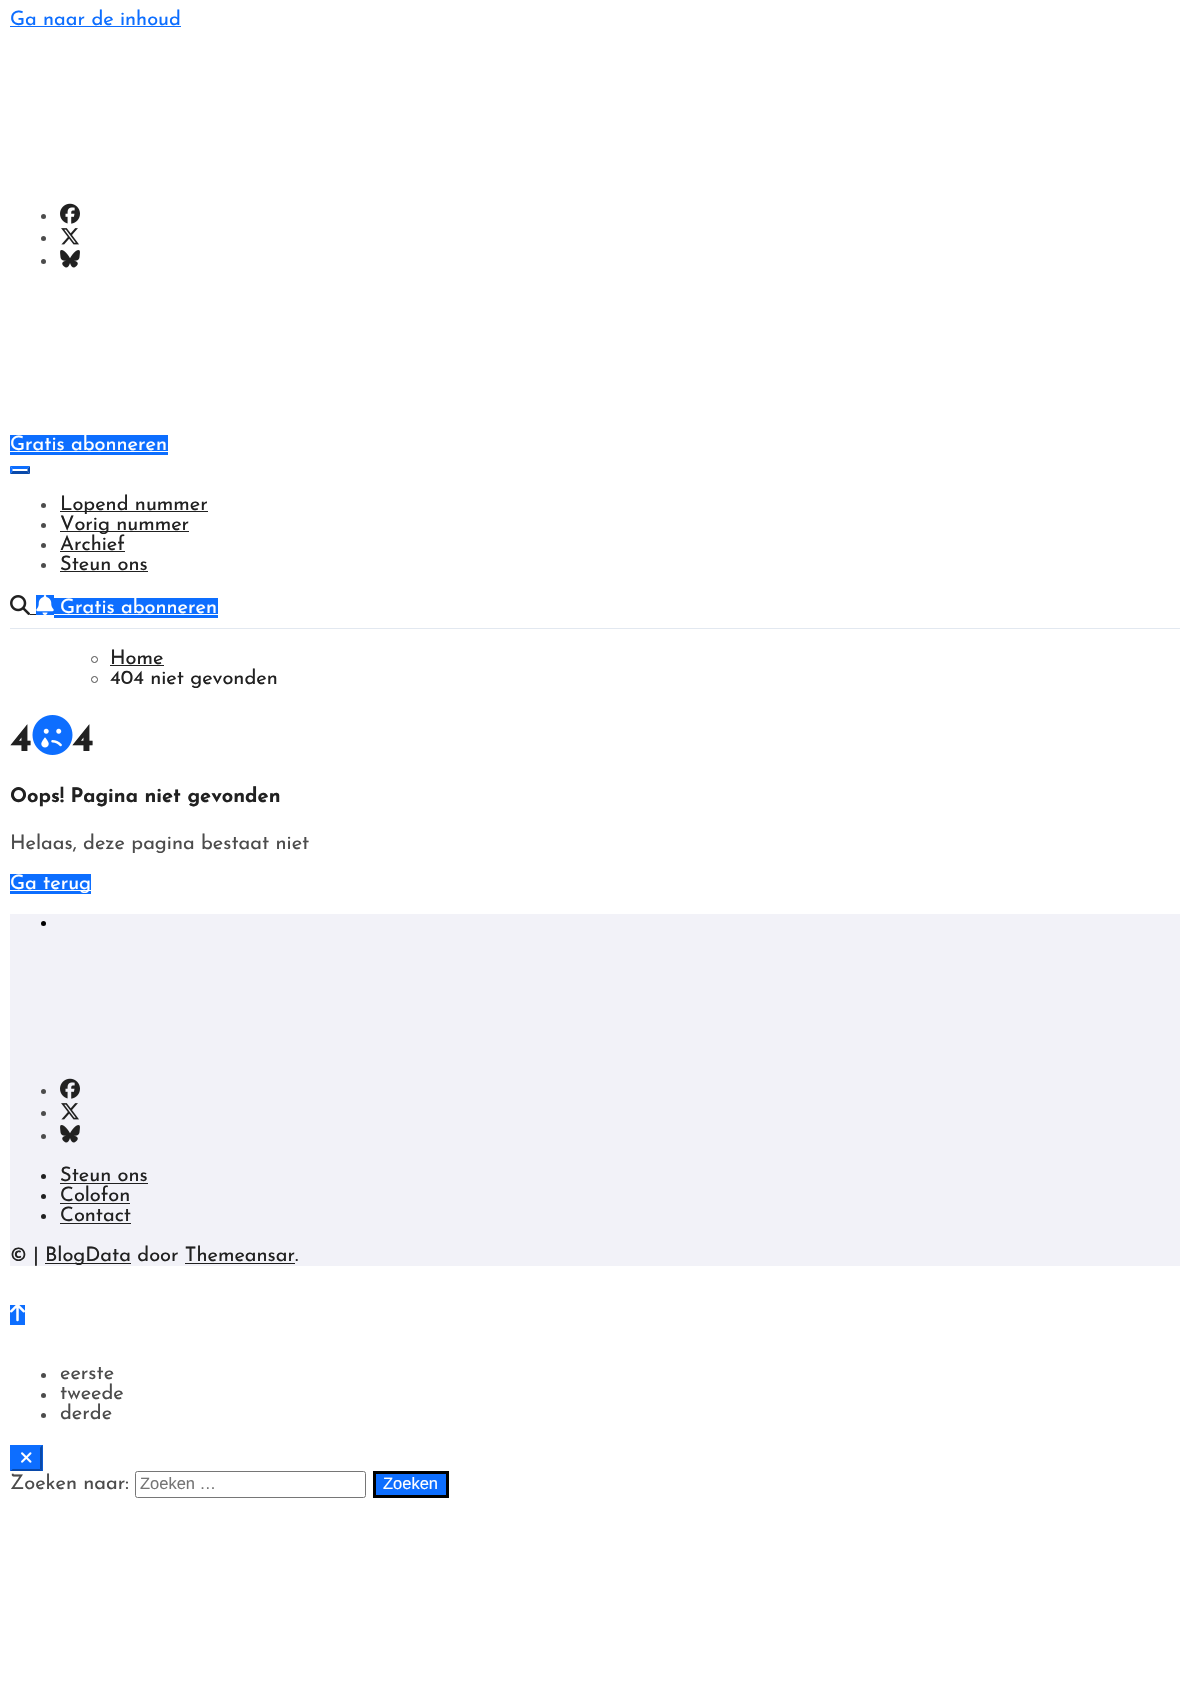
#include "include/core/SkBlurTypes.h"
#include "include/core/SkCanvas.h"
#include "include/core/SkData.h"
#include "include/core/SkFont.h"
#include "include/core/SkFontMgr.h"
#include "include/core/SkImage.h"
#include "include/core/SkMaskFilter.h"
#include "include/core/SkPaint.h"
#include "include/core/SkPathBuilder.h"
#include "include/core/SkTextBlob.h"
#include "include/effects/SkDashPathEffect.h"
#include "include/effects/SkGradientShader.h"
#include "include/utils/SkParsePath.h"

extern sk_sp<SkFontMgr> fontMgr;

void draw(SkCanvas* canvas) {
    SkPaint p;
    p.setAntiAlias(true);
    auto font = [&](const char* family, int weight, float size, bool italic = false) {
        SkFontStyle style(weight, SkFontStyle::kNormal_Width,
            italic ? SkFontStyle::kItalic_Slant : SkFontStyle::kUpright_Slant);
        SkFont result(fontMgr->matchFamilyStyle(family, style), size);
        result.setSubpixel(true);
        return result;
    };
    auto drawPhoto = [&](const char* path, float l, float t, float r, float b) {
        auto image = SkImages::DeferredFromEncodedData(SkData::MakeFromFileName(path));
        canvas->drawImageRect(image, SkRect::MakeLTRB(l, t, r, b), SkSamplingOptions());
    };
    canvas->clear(0xFFFFFFFF);
    auto font1 = font("Josefin Sans", 400, 20);
    p.setColor(0xFF0D6EFF);
    canvas->drawString("Ga naar de inhoud", 10, 25, font1, p);
    canvas->drawRect(SkRect::MakeLTRB(10, 26, 181, 27), p);
    p.setColor(0xFFE2E8F0);
    canvas->drawRect(SkRect::MakeLTRB(10, 628, 1180, 629), p);
    p.setColor(0xFF4C4C4C);
    canvas->drawCircle(43.5f, 216.5f, 2.5f, p);
    drawPhoto("media/1.png", 60, 203, 80, 224);
    canvas->drawCircle(43.5f, 238.5f, 2.5f, p);
    drawPhoto("media/2.png", 61, 228, 79, 245);
    canvas->drawCircle(43.5f, 261.5f, 2.5f, p);
    drawPhoto("media/3.png", 60, 250, 80, 268);
    p.setColor(0xFF0D6EFF);
    canvas->drawRect(SkRect::MakeLTRB(10, 435, 168, 455), p);
    p.setColor(0xFFFFFFFF);
    canvas->drawString("Gratis abonneren", 10, 450, font1, p);
    canvas->drawRect(SkRect::MakeLTRB(10, 451, 168, 452), p);
    p.setColor(0xFF0D6EFF);
    canvas->drawPath(SkPathBuilder().moveTo(10, 466).lineTo(30, 466).lineTo(27.5f, 469).lineTo(12.5f, 469).close().detach(), p);
    p.setColor(0xFF0949AA);
    canvas->drawPath(SkPathBuilder().moveTo(30, 466).lineTo(30, 474).lineTo(27.5f, 471).lineTo(27.5f, 469).close().detach(), p);
    canvas->drawPath(SkPathBuilder().moveTo(30, 474).lineTo(10, 474).lineTo(12.5f, 471).lineTo(27.5f, 471).close().detach(), p);
    p.setColor(0xFF0D6EFF);
    canvas->drawPath(SkPathBuilder().moveTo(10, 474).lineTo(10, 466).lineTo(12.5f, 469).lineTo(12.5f, 471).close().detach(), p);
    p.setColor(0xFF4C4C4C);
    canvas->drawCircle(43.5f, 505.5f, 2.5f, p);
    p.setColor(0xFF212121);
    canvas->drawRect(SkRect::MakeLTRB(60, 511, 208, 512), p);
    canvas->drawString("Lopend nummer", 60, 510, font1, p);
    p.setColor(0xFF4C4C4C);
    canvas->drawCircle(43.5f, 525.5f, 2.5f, p);
    p.setColor(0xFF212121);
    canvas->drawRect(SkRect::MakeLTRB(60, 531, 189, 532), p);
    canvas->drawString("Vorig nummer", 60, 530, font1, p);
    p.setColor(0xFF4C4C4C);
    canvas->drawCircle(43.5f, 545.5f, 2.5f, p);
    p.setColor(0xFF212121);
    canvas->drawString("Archief", 60, 550, font1, p);
    canvas->drawRect(SkRect::MakeLTRB(60, 551, 125, 552), p);
    p.setColor(0xFF4C4C4C);
    canvas->drawCircle(43.5f, 565.5f, 2.5f, p);
    p.setColor(0xFF212121);
    canvas->drawString("Steun ons", 60, 570, font1, p);
    canvas->drawRect(SkRect::MakeLTRB(60, 571, 148, 572), p);
    drawPhoto("media/4.png", 10, 595, 30, 615);
    {
        const struct { float l, t, r, b; SkColor color; } items[] = {
            {30, 614, 36, 615, 0xFF212121},
            {36, 595, 54, 615, 0xFF0D6EFF},
            {54, 598, 218, 618, 0xFF0D6EFF},
        };
        for (auto [l, t, r, b, color] : items) {
            p.setColor(color);
            canvas->drawRect(SkRect::MakeLTRB(l, t, r, b), p);
        }
    }
    drawPhoto("media/5.png", 36, 595, 54, 615);
    p.setColor(0xFFFFFFFF);
    canvas->drawString("Gratis abonneren", 60, 613, font1, p);
    canvas->drawRect(SkRect::MakeLTRB(54, 614, 218, 615), p);
    p.setStyle(SkPaint::kStroke_Style);
    p.setStrokeWidth(1);
    p.setColor(0xFF4C4C4C);
    canvas->drawCircle(94.5f, 659.5f, 3, p);
    p.setStyle(SkPaint::kFill_Style);
    p.setColor(0xFF212121);
    canvas->drawString("Home", 110, 664, font1, p);
    canvas->drawRect(SkRect::MakeLTRB(110, 665, 164, 666), p);
    p.setStyle(SkPaint::kStroke_Style);
    p.setColor(0xFF4C4C4C);
    canvas->drawCircle(94.5f, 679.5f, 3, p);
    p.setStyle(SkPaint::kFill_Style);
    p.setColor(0xFF212121);
    canvas->drawString("404 niet gevonden", 110, 684, font1, p);
    auto font2 = font("Josefin Sans", 700, 40);
    canvas->drawString("4", 10, 751, font2, p);
    drawPhoto("media/6.png", 32, 715, 73, 755);
    canvas->drawString("4", 72, 751, font2, p);
    auto font3 = font("Josefin Sans", 700, 20);
    canvas->drawString("Oops! Pagina niet gevonden", 10, 802, font3, p);
    p.setColor(0xFF4C4C4C);
    canvas->drawString("Helaas, deze pagina bestaat niet", 10, 849, font1, p);
    p.setColor(0xFF0D6EFF);
    canvas->drawRect(SkRect::MakeLTRB(10, 874, 91, 894), p);
    p.setColor(0xFFFFFFFF);
    canvas->drawRect(SkRect::MakeLTRB(10, 890, 91, 891), p);
    canvas->drawString("Ga terug", 10, 889, font1, p);
    p.setColor(0xFFF2F2F8);
    canvas->drawRect(SkRect::MakeLTRB(10, 914, 1180, 1266), p);
    p.setColor(0xFF000000);
    canvas->drawCircle(43.5f, 923.5f, 2.5f, p);
    p.setColor(0xFF4C4C4C);
    canvas->drawCircle(43.5f, 1091.5f, 2.5f, p);
    drawPhoto("media/7.png", 60, 1078, 80, 1099);
    canvas->drawCircle(43.5f, 1113.5f, 2.5f, p);
    drawPhoto("media/8.png", 61, 1103, 79, 1120);
    canvas->drawCircle(43.5f, 1136.5f, 2.5f, p);
    drawPhoto("media/9.png", 60, 1125, 80, 1143);
    p.setColor(0xFF212121);
    canvas->drawCircle(43.5f, 1176.5f, 2.5f, p);
    canvas->drawString("Steun ons", 60, 1181, font1, p);
    canvas->drawRect(SkRect::MakeLTRB(60, 1183, 148, 1184), p);
    canvas->drawCircle(43.5f, 1196.5f, 2.5f, p);
    canvas->drawString("Colofon", 60, 1201, font1, p);
    canvas->drawRect(SkRect::MakeLTRB(60, 1203, 130, 1204), p);
    canvas->drawCircle(43.5f, 1216.5f, 2.5f, p);
    canvas->drawString("Contact", 60, 1221, font1, p);
    canvas->drawRect(SkRect::MakeLTRB(60, 1223, 131, 1224), p);
    canvas->drawString("© |", 10, 1261, font1, p);
    canvas->drawRect(SkRect::MakeLTRB(45, 1263, 131, 1264), p);
    canvas->drawString("BlogData door Themeansar.", 45, 1261, font1, p);
    canvas->drawRect(SkRect::MakeLTRB(185, 1263, 295, 1264), p);
    p.setColor(0xFF0D6EFF);
    canvas->drawRect(SkRect::MakeLTRB(10, 1305, 25, 1325), p);
    drawPhoto("media/10.png", 10, 1305, 25, 1322);
    p.setColor(0xFF4C4C4C);
    canvas->drawCircle(43.5f, 1375.5f, 2.5f, p);
    canvas->drawString("eerste", 60, 1379, font1, p);
    canvas->drawCircle(43.5f, 1395.5f, 2.5f, p);
    canvas->drawString("tweede", 60, 1399, font1, p);
    canvas->drawCircle(43.5f, 1415.5f, 2.5f, p);
    canvas->drawString("derde", 60, 1419, font1, p);
    p.setColor(0xFF0D6EFF);
    canvas->drawRect(SkRect::MakeLTRB(10, 1445, 43, 1471), p);
    p.setColor(0xFF0949AA);
    canvas->drawPath(SkPathBuilder().moveTo(42.5f, 1445).lineTo(42.5f, 1471).lineTo(40, 1469).lineTo(40, 1447.5f).close().detach(), p);
    canvas->drawPath(SkPathBuilder().moveTo(42.5f, 1471).lineTo(10, 1471).lineTo(12.5f, 1469).lineTo(40, 1469).close().detach(), p);
    p.setColor(0xFF0D6EFF);
    canvas->drawPath(SkPathBuilder().moveTo(10, 1471).lineTo(10, 1445).lineTo(12.5f, 1447.5f).lineTo(12.5f, 1469).close().detach(), p);
    drawPhoto("media/11.png", 21, 1452, 32, 1463);
    p.setColor(0xFF4C4C4C);
    canvas->drawString("Zoeken naar:", 10, 1489, font1, p);
    p.setStyle(SkPaint::kStroke_Style);
    p.setColor(0xFF767676);
    canvas->drawRoundRect(SkRect::MakeLTRB(135.5f, 1471.5f, 365.5f, 1497.5f), 2, 2, p);
    auto font4 = font("Liberation Sans", 400, 16.5f);
    p.setStyle(SkPaint::kFill_Style);
    p.setColor(0xFF757575);
    canvas->drawString("Zoeken …", 140, 1489, font4, p);
    p.setColor(0xFF0D6EFF);
    canvas->drawRect(SkRect::MakeLTRB(374.5f, 1472.5f, 447.5f, 1496.5f), p);
    p.setStyle(SkPaint::kStroke_Style);
    p.setStrokeWidth(3);
    p.setColor(0xFF000000);
    canvas->drawRect(SkRect::MakeLTRB(374.5f, 1472.5f, 447.5f, 1496.5f), p);
    p.setStyle(SkPaint::kFill_Style);
    p.setColor(0xFFFFFFFF);
    canvas->drawString("Zoeken", 383, 1489, font4, p);
}
